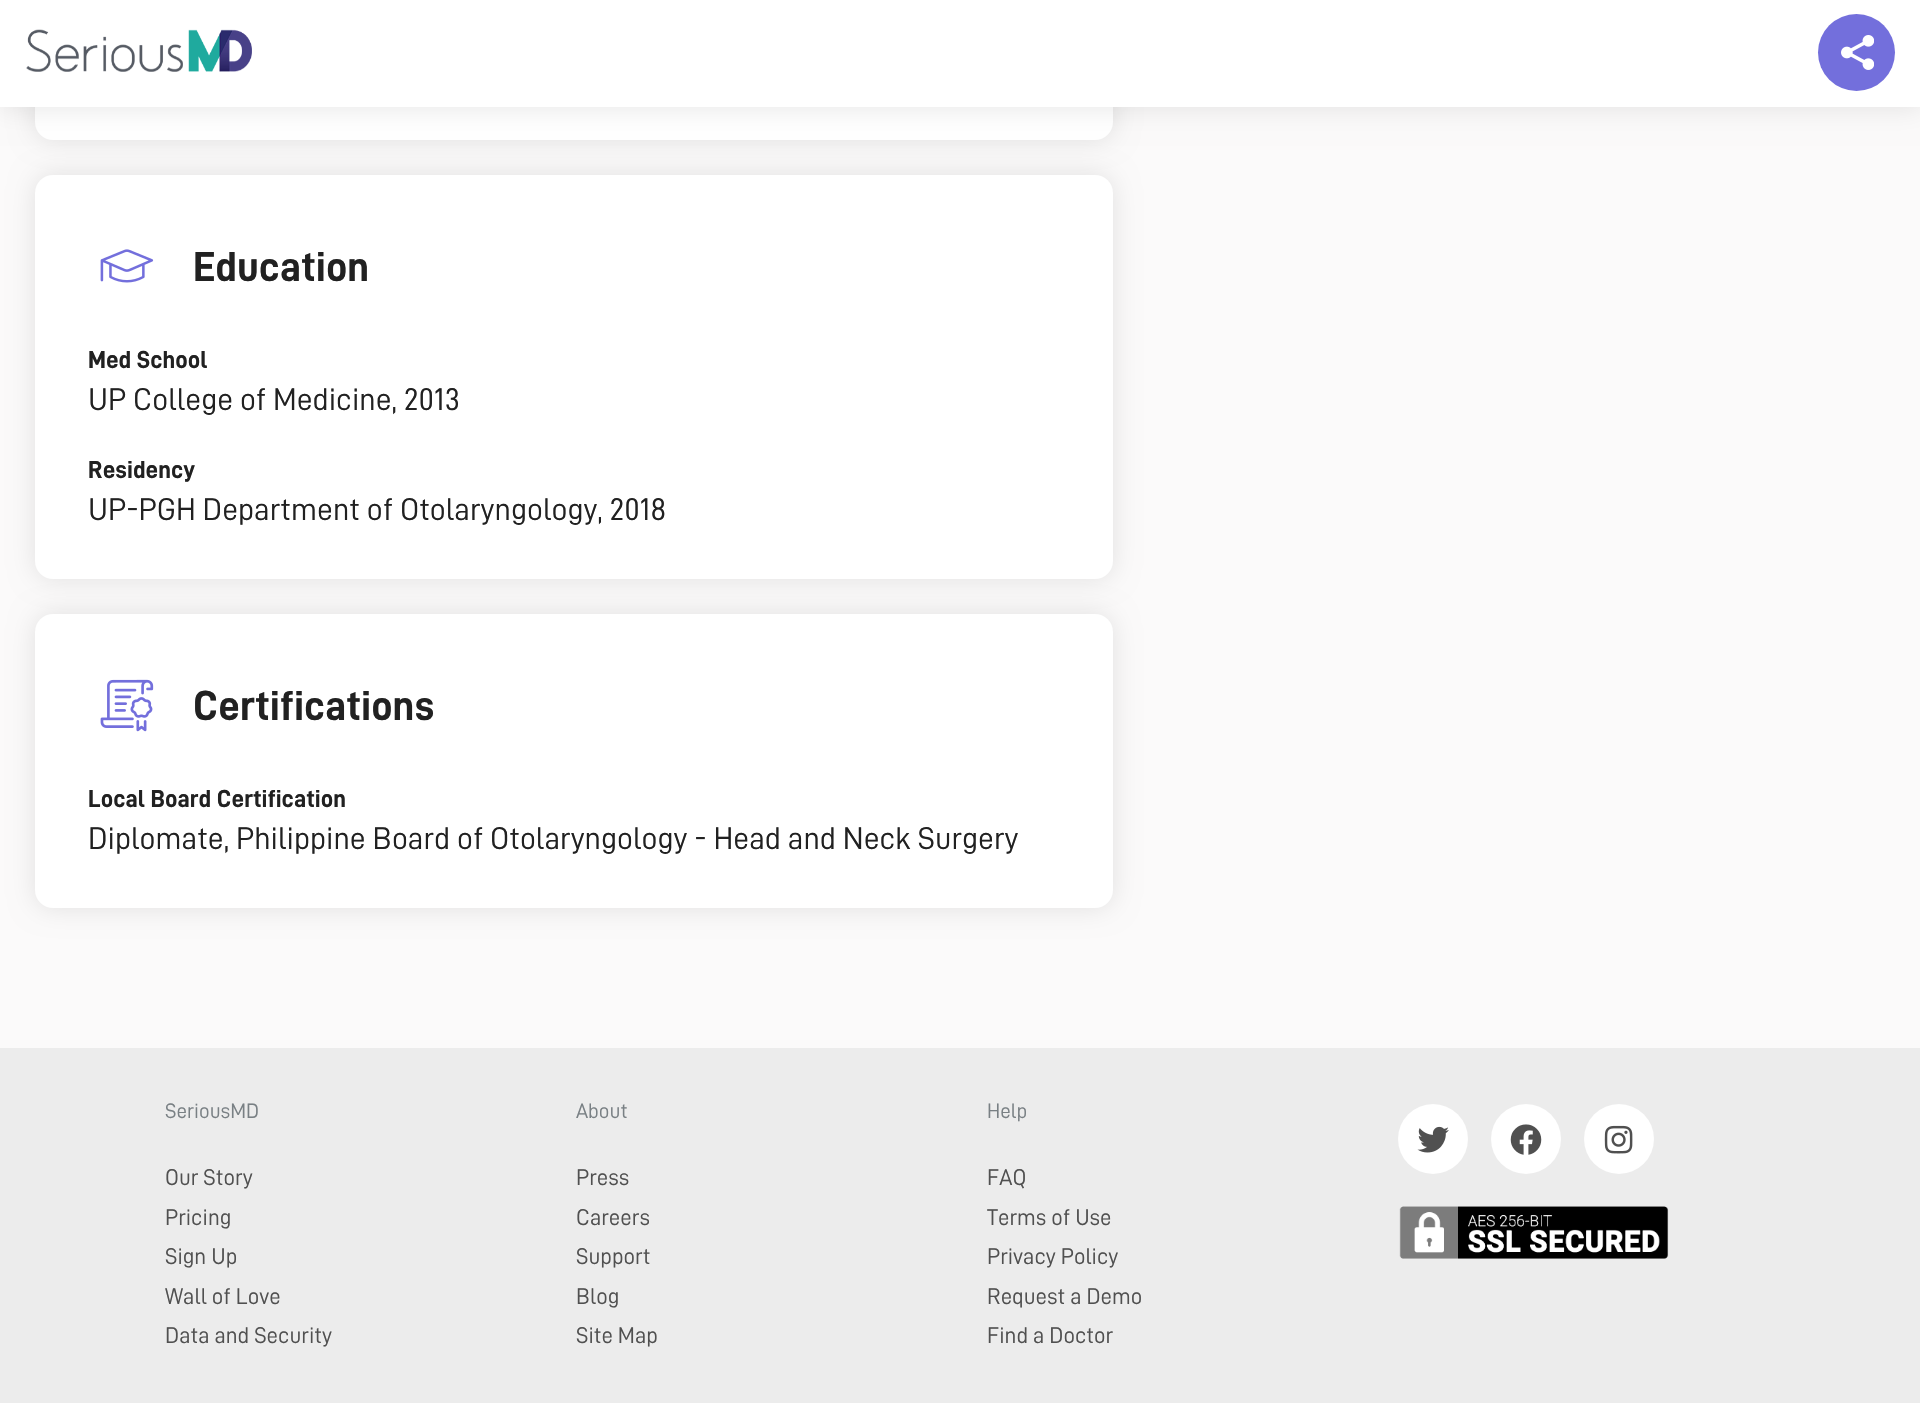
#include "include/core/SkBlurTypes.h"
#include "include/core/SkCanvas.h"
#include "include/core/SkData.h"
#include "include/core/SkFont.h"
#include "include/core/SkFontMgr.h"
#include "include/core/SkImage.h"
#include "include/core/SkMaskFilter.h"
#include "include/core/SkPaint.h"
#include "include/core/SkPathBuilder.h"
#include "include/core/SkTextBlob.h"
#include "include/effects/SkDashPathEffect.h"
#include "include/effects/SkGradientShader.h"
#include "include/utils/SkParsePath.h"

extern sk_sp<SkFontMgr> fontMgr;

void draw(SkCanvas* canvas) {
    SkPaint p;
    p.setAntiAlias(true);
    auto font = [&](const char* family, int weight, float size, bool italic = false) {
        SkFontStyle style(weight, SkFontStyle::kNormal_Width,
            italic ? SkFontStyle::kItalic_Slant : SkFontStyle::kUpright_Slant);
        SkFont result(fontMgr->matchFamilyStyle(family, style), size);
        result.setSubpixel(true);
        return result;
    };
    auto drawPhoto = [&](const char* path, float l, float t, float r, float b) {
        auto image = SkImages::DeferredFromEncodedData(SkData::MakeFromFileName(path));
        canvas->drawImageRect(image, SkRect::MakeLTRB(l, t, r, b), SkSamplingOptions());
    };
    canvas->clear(0xFFFBFAFA);
    p.setColor(0x1A000000);
    p.setMaskFilter(SkMaskFilter::MakeBlur(kNormal_SkBlurStyle, 13));
    canvas->drawRoundRect(SkRect::MakeLTRB(35, -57, 1113, 140), 18, 18, p);
    p.setMaskFilter(nullptr);
    p.setColor(0xFFFFFFFF);
    canvas->drawRoundRect(SkRect::MakeLTRB(35, -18, 1113, 140), 18, 18, p);
    p.setColor(0x1A000000);
    p.setMaskFilter(SkMaskFilter::MakeBlur(kNormal_SkBlurStyle, 13));
    canvas->drawRect(SkRect::MakeLTRB(0, 0, 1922, 107), p);
    p.setMaskFilter(nullptr);
    p.setColor(0xFFFFFFFF);
    canvas->drawRect(SkRect::MakeLTRB(0, 0, 1920, 107), p);
    drawPhoto("media/1.png", 26, 29, 252, 72);
    p.setColor(0xFF736FDC);
    canvas->drawCircle(1856.5f, 52.5f, 38.5f, p);
    drawPhoto("media/2.png", 1841, 35, 1874, 70);
    p.setColor(0x1A000000);
    p.setMaskFilter(SkMaskFilter::MakeBlur(kNormal_SkBlurStyle, 13));
    canvas->drawRoundRect(SkRect::MakeLTRB(35, 175, 1113, 579), 18, 18, p);
    p.setMaskFilter(nullptr);
    p.setColor(0xFFFFFFFF);
    canvas->drawRoundRect(SkRect::MakeLTRB(35, 175, 1113, 579), 18, 18, p);
    drawPhoto("media/3.png", 100, 249, 154, 283);
    auto font1 = font("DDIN", 700, 42);
    p.setColor(0xFF212121);
    canvas->drawString("Education", 193, 281, font1, p);
    auto font2 = font("DDIN", 700, 24.5f);
    canvas->drawString("Med School", 88, 368, font2, p);
    auto font3 = font("DDIN", 400, 31.5f);
    canvas->drawString("UP College of Medicine, 2013", 88, 410, font3, p);
    canvas->drawString("Residency", 88, 478, font2, p);
    canvas->drawString("UP-PGH Department of Otolaryngology, 2018", 88, 520, font3, p);
    p.setColor(0x1A000000);
    p.setMaskFilter(SkMaskFilter::MakeBlur(kNormal_SkBlurStyle, 13));
    canvas->drawRoundRect(SkRect::MakeLTRB(35, 614, 1113, 908), 18, 18, p);
    p.setMaskFilter(nullptr);
    p.setColor(0xFFFFFFFF);
    canvas->drawRoundRect(SkRect::MakeLTRB(35, 614, 1113, 908), 18, 18, p);
    drawPhoto("media/4.png", 100, 679, 154, 732);
    p.setColor(0xFF212121);
    canvas->drawString("Certifications", 193, 720, font1, p);
    canvas->drawString("Local Board Certification", 88, 807, font2, p);
    canvas->drawString("Diplomate, Philippine Board of Otolaryngology - Head and Neck Surgery", 88, 849, font3, p);
    p.setColor(0xFFECECEC);
    canvas->drawRect(SkRect::MakeLTRB(0, 1048, 1920, 1403), p);
    auto font4 = font("DDIN", 400, 21);
    p.setColor(0xFF798084);
    canvas->drawString("SeriousMD", 165, 1118, font4, p);
    auto font5 = font("DDIN", 400, 22.75f);
    p.setColor(0xFF505050);
    {
        const struct { const char* s; float x, y; } items[] = {
            {"Our Story", 165, 1185},
            {"Pricing", 165, 1225},
            {"Sign Up", 165, 1264},
            {"Wall of Love", 165, 1304},
            {"Data and Security", 165, 1343},
        };
        for (auto [s, x, y] : items) {
            canvas->drawString(s, x, y, font5, p);
        }
    }
    p.setColor(0xFF798084);
    canvas->drawString("About", 576, 1118, font4, p);
    p.setColor(0xFF505050);
    {
        const struct { const char* s; float x, y; } items[] = {
            {"Press", 576, 1185},
            {"Careers", 576, 1225},
            {"Support", 576, 1264},
            {"Blog", 576, 1304},
            {"Site Map", 576, 1343},
        };
        for (auto [s, x, y] : items) {
            canvas->drawString(s, x, y, font5, p);
        }
    }
    p.setColor(0xFF798084);
    canvas->drawString("Help", 987, 1118, font4, p);
    p.setColor(0xFF505050);
    {
        const struct { const char* s; float x, y; } items[] = {
            {"FAQ", 987, 1185},
            {"Terms of Use", 987, 1225},
            {"Privacy Policy", 987, 1264},
            {"Request a Demo", 987, 1304},
            {"Find a Doctor", 987, 1343},
        };
        for (auto [s, x, y] : items) {
            canvas->drawString(s, x, y, font5, p);
        }
    }
    p.setColor(0xFFFFFFFF);
    canvas->drawCircle(1433, 1139, 35, p);
    drawPhoto("media/5.png", 1417, 1126, 1449, 1153);
    canvas->drawCircle(1526, 1139, 35, p);
    drawPhoto("media/6.png", 1510, 1124, 1542, 1155);
    canvas->drawCircle(1619, 1139, 35, p);
    drawPhoto("media/7.png", 1604, 1125, 1633, 1154);
    drawPhoto("media/8.png", 1399, 1206, 1669, 1259);
}
